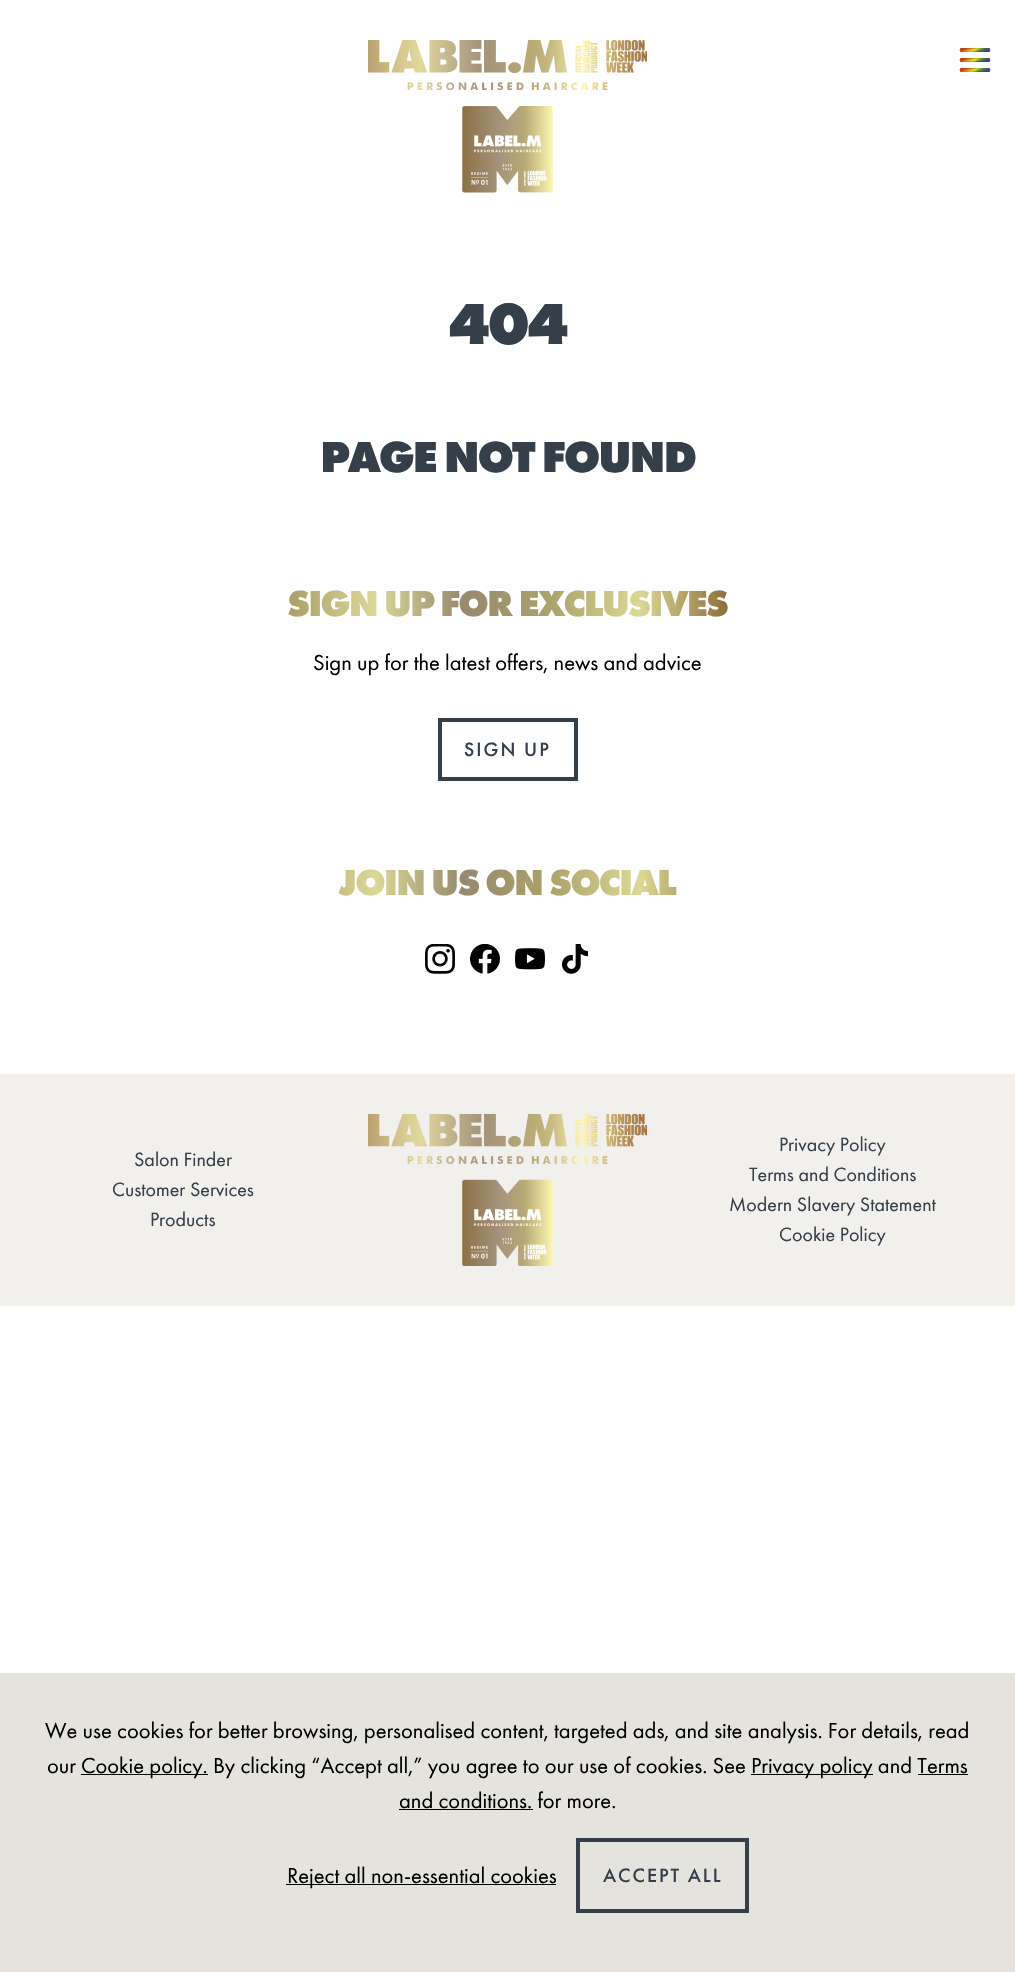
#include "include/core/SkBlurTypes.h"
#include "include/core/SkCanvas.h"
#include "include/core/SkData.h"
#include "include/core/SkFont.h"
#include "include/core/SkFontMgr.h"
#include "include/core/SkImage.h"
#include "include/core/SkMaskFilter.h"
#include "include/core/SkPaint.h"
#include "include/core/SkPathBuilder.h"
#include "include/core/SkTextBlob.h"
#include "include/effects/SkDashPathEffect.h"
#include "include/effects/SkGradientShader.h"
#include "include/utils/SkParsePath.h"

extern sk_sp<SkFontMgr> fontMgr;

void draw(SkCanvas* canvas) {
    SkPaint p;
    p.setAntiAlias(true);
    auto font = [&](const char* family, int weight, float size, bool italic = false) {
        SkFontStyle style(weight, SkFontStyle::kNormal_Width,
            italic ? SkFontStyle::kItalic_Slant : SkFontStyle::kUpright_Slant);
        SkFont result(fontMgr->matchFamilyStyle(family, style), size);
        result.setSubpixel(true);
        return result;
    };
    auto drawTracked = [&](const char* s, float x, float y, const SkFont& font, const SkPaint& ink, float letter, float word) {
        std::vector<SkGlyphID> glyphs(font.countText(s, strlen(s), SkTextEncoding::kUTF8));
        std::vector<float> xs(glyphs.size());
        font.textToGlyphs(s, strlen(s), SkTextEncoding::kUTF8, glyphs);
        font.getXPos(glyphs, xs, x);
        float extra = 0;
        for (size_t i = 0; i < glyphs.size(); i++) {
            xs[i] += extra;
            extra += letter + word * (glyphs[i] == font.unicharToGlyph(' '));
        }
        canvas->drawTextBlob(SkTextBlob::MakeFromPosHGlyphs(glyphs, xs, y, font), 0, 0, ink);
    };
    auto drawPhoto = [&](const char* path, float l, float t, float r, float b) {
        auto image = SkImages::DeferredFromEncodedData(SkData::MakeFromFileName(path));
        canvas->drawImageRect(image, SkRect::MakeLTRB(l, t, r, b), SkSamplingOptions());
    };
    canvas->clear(0xFFFFFFFF);
    drawPhoto("media/1.png", 368, 40, 647, 193);
    drawPhoto("media/2.png", 959, 48, 991, 72);
    auto font1 = font("Futura PT", 800, 60);
    p.setColor(0xFF343F4A);
    drawTracked("404", 448, 344, font1, p, -3, 0);
    auto font2 = font("Futura PT", 800, 45);
    drawTracked("PAGE NOT FOUND", 320, 472, font2, p, -2.25f, 0);
    auto font3 = font("Futura PT", 800, 37.5f);
    {
        const SkColor colors[] = {0xFFAB9C69, 0xFFDBD896, 0xFF97896F, 0xFFACA36C, 0xFFDBD896, 0xFF8C6E39};
        const float stops[] = {0, 0.2f, 0.4f, 0.6f, 0.8f, 1};
        const SkPoint ends[] = {{287, 604}, {728, 604}};
        p.setShader(SkGradientShader::MakeLinear(ends, colors, stops, 6, SkTileMode::kClamp));
        p.setAlpha(255);
    }
    drawTracked("SIGN UP FOR EXCLUSIVES", 287, 616, font3, p, -1.9f, 0);
    auto font4 = font("Futura PT", 400, 22.5f);
    p.setShader(nullptr);
    p.setColor(0xFF000000);
    canvas->drawString("Sign up for the latest offers, news and advice", 313, 670, font4, p);
    p.setStyle(SkPaint::kStroke_Style);
    p.setStrokeWidth(4);
    p.setColor(0xFF343F4A);
    canvas->drawRect(SkRect::MakeLTRB(440, 720, 576, 779), p);
    auto font5 = font("Futura PT", 500, 20);
    p.setStyle(SkPaint::kFill_Style);
    drawTracked("SIGN UP", 464, 756, font5, p, 2, 0);
    {
        const SkColor colors[] = {0xFFAB9C69, 0xFFDBD896, 0xFF97896F, 0xFFACA36C, 0xFFDBD896, 0xFF8C6E39};
        const float stops[] = {0, 0.2f, 0.4f, 0.6f, 0.8f, 1};
        const SkPoint ends[] = {{287, 882}, {728, 882}};
        p.setShader(SkGradientShader::MakeLinear(ends, colors, stops, 6, SkTileMode::kClamp));
        p.setAlpha(255);
    }
    drawTracked("JOIN US ON SOCIAL", 339, 895, font3, p, -1.9f, 0);
    drawPhoto("media/3.png", 425, 944, 455, 974);
    drawPhoto("media/4.png", 470, 944, 500, 974);
    drawPhoto("media/5.png", 515, 948, 545, 970);
    drawPhoto("media/6.png", 562, 944, 589, 974);
    p.setShader(nullptr);
    p.setColor(0xFFF1F0ED);
    canvas->drawRect(SkRect::MakeLTRB(0, 1074, 1015, 1306), p);
    auto font6 = font("Futura PT", 400, 20);
    p.setColor(0xFF343F4A);
    {
        const struct { const char* s; float x, y; } items[] = {
            {"Salon Finder", 134, 1166},
            {"Customer Services", 112, 1196},
            {"Products", 150, 1226},
        };
        for (auto [s, x, y] : items) {
            canvas->drawString(s, x, y, font6, p);
        }
    }
    drawPhoto("media/7.png", 368, 1114, 647, 1266);
    {
        const struct { const char* s; float x, y; } items[] = {
            {"Privacy Policy", 779, 1151},
            {"Terms and Conditions", 749, 1181},
            {"Modern Slavery Statement", 729, 1211},
            {"Cookie Policy", 779, 1241},
        };
        for (auto [s, x, y] : items) {
            canvas->drawString(s, x, y, font6, p);
        }
    }
    p.setColor(0xFFE5E3DE);
    canvas->drawRect(SkRect::MakeLTRB(0, 1673, 1015, 1972), p);
    p.setColor(0xFF000000);
    canvas->drawString("We use cookies for better browsing, personalised content, targeted ads, and site analysis. For details, read", 45, 1738, font4, p);
    canvas->drawString("our", 47, 1773, font4, p);
    canvas->drawRect(SkRect::MakeLTRB(81, 1774, 208, 1775), p);
    canvas->drawString("Cookie policy. By clicking “Accept all,” you agree to our use of cookies. See", 81, 1773, font4, p);
    canvas->drawRect(SkRect::MakeLTRB(751, 1774, 873, 1775), p);
    canvas->drawString("Privacy policy and Terms", 751, 1773, font4, p);
    canvas->drawString("and conditions. for more.", 399, 1808, font4, p);
    {
        const struct { float l, t, r, b; SkColor color; } items[] = {
            {918, 1774, 968, 1775, 0xFF000000},
            {399, 1809, 533, 1810, 0xFF000000},
            {286, 1884, 556, 1885, 0xFF000000},
        };
        for (auto [l, t, r, b, color] : items) {
            p.setColor(color);
            canvas->drawRect(SkRect::MakeLTRB(l, t, r, b), p);
        }
    }
    canvas->drawString("Reject all non-essential cookies", 287, 1883, font4, p);
    p.setStyle(SkPaint::kStroke_Style);
    p.setColor(0xFF343F4A);
    canvas->drawRect(SkRect::MakeLTRB(578, 1840, 747, 1911), p);
    p.setStyle(SkPaint::kFill_Style);
    drawTracked("ACCEPT ALL", 603, 1882, font5, p, 2, 0);
}
